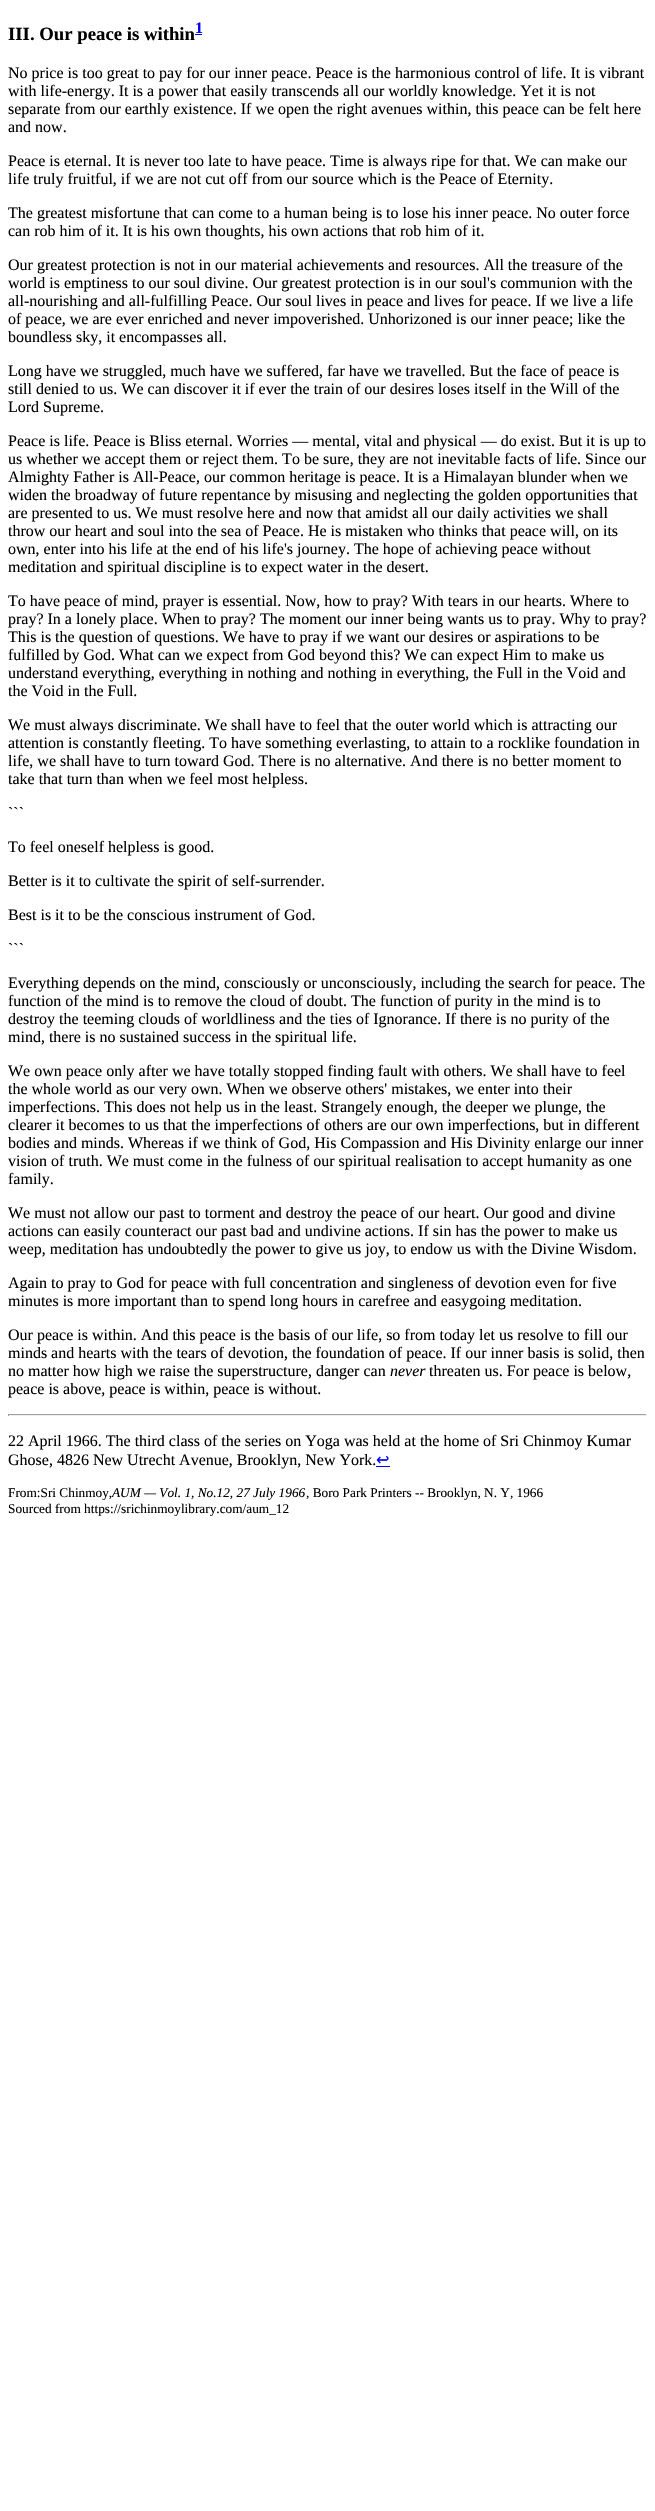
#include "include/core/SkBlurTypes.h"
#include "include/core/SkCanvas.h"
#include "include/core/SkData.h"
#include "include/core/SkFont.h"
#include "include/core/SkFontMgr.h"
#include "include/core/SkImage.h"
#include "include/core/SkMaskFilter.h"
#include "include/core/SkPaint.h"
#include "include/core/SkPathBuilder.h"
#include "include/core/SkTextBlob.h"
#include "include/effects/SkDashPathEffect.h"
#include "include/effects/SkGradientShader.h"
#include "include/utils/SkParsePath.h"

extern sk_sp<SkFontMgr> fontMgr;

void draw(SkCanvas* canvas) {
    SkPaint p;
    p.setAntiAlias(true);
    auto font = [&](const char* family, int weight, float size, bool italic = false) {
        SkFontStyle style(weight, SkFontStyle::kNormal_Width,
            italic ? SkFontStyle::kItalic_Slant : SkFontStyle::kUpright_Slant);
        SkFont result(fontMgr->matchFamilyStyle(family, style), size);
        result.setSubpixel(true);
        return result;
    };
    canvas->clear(0xFFFFFFFF);
    auto font1 = font("Liberation Serif", 700, 18.75f);
    p.setColor(0xFF000000);
    canvas->drawString("III. Our peace is within", 8, 40, font1, p);
    auto font2 = font("Liberation Serif", 700, 16);
    p.setColor(0xFF0000EE);
    canvas->drawString("1", 195, 33, font2, p);
    canvas->drawRect(SkRect::MakeLTRB(195, 34, 202, 35), p);
    auto font3 = font("Liberation Serif", 400, 16);
    p.setColor(0xFF000000);
    {
        const struct { const char* s; float x, y; } items[] = {
            {"No price is too great to pay for our inner peace. Peace is the harmonious control of life. It is vibrant", 8, 78},
            {"with life-energy. It is a power that easily transcends all our worldly knowledge. Yet it is not", 8, 96},
            {"separate from our earthly existence. If we open the right avenues within, this peace can be felt here", 8, 114},
            {"and now.", 8, 132},
            {"Peace is eternal. It is never too late to have peace. Time is always ripe for that. We can make our", 8, 166},
            {"life truly fruitful, if we are not cut off from our source which is the Peace of Eternity.", 8, 184},
            {"The greatest misfortune that can come to a human being is to lose his inner peace. No outer force", 8, 218},
            {"can rob him of it. It is his own thoughts, his own actions that rob him of it.", 8, 236},
            {"Our greatest protection is not in our material achievements and resources. All the treasure of the", 8, 270},
            {"world is emptiness to our soul divine. Our greatest protection is in our soul's communion with the", 8, 288},
            {"all-nourishing and all-fulfilling Peace. Our soul lives in peace and lives for peace. If we live a life", 8, 306},
            {"of peace, we are ever enriched and never impoverished. Unhorizoned is our inner peace; like the", 8, 324},
            {"boundless sky, it encompasses all.", 8, 342},
            {"Long have we struggled, much have we suffered, far have we travelled. But the face of peace is", 8, 376},
            {"still denied to us. We can discover it if ever the train of our desires loses itself in the Will of the", 8, 394},
            {"Lord Supreme.", 8, 412},
            {"Peace is life. Peace is Bliss eternal. Worries — mental, vital and physical — do exist. But it is up to", 8, 446},
            {"us whether we accept them or reject them. To be sure, they are not inevitable facts of life. Since our", 8, 464},
            {"Almighty Father is All-Peace, our common heritage is peace. It is a Himalayan blunder when we", 8, 482},
            {"widen the broadway of future repentance by misusing and neglecting the golden opportunities that", 8, 500},
            {"are presented to us. We must resolve here and now that amidst all our daily activities we shall", 8, 518},
            {"throw our heart and soul into the sea of Peace. He is mistaken who thinks that peace will, on its", 8, 536},
            {"own, enter into his life at the end of his life's journey. The hope of achieving peace without", 8, 554},
            {"meditation and spiritual discipline is to expect water in the desert.", 8, 572},
            {"To have peace of mind, prayer is essential. Now, how to pray? With tears in our hearts. Where to", 8, 606},
            {"pray? In a lonely place. When to pray? The moment our inner being wants us to pray. Why to pray?", 8, 624},
            {"This is the question of questions. We have to pray if we want our desires or aspirations to be", 8, 642},
            {"fulfilled by God. What can we expect from God beyond this? We can expect Him to make us", 8, 660},
            {"understand everything, everything in nothing and nothing in everything, the Full in the Void and", 8, 678},
            {"the Void in the Full.", 8, 696},
            {"We must always discriminate. We shall have to feel that the outer world which is attracting our", 8, 730},
            {"attention is constantly fleeting. To have something everlasting, to attain to a rocklike foundation in", 8, 748},
            {"life, we shall have to turn toward God. There is no alternative. And there is no better moment to", 8, 766},
            {"take that turn than when we feel most helpless.", 8, 784},
            {"```", 8, 818},
            {"To feel oneself helpless is good.", 8, 852},
            {"Better is it to cultivate the spirit of self-surrender.", 8, 886},
            {"Best is it to be the conscious instrument of God.", 8, 920},
            {"```", 8, 954},
            {"Everything depends on the mind, consciously or unconsciously, including the search for peace. The", 8, 988},
            {"function of the mind is to remove the cloud of doubt. The function of purity in the mind is to", 8, 1006},
            {"destroy the teeming clouds of worldliness and the ties of Ignorance. If there is no purity of the", 8, 1024},
            {"mind, there is no sustained success in the spiritual life.", 8, 1042},
            {"We own peace only after we have totally stopped finding fault with others. We shall have to feel", 8, 1076},
            {"the whole world as our very own. When we observe others' mistakes, we enter into their", 8, 1094},
            {"imperfections. This does not help us in the least. Strangely enough, the deeper we plunge, the", 8, 1112},
            {"clearer it becomes to us that the imperfections of others are our own imperfections, but in different", 8, 1130},
            {"bodies and minds. Whereas if we think of God, His Compassion and His Divinity enlarge our inner", 8, 1148},
            {"vision of truth. We must come in the fulness of our spiritual realisation to accept humanity as one", 8, 1166},
            {"family.", 8, 1184},
            {"We must not allow our past to torment and destroy the peace of our heart. Our good and divine", 8, 1218},
            {"actions can easily counteract our past bad and undivine actions. If sin has the power to make us", 8, 1236},
            {"weep, meditation has undoubtedly the power to give us joy, to endow us with the Divine Wisdom.", 8, 1254},
            {"Again to pray to God for peace with full concentration and singleness of devotion even for five", 8, 1288},
            {"minutes is more important than to spend long hours in carefree and easygoing meditation.", 8, 1306},
            {"Our peace is within. And this peace is the basis of our life, so from today let us resolve to fill our", 8, 1340},
            {"minds and hearts with the tears of devotion, the foundation of peace. If our inner basis is solid, then", 8, 1358},
            {"no matter how high we raise the superstructure, danger can", 8, 1376},
        };
        for (auto [s, x, y] : items) {
            canvas->drawString(s, x, y, font3, p);
        }
    }
    auto font4 = font("Liberation Serif", 400, 16, true);
    canvas->drawString("never", 390, 1376, font4, p);
    canvas->drawString("threaten us. For peace is below,", 429, 1376, font3, p);
    canvas->drawString("peace is above, peace is within, peace is without.", 8, 1394, font3, p);
    {
        const struct { float l, t, r, b; SkColor color; } items[] = {
            {8, 1414, 647, 1415, 0xFF9F9F9F},
            {646, 1414, 647, 1416, 0xFFEEEEEE},
            {8, 1415, 647, 1416, 0xFFEEEEEE},
            {8, 1414, 9, 1416, 0xFF9F9F9F},
        };
        for (auto [l, t, r, b, color] : items) {
            p.setColor(color);
            canvas->drawRect(SkRect::MakeLTRB(l, t, r, b), p);
        }
    }
    p.setColor(0xFF000000);
    canvas->drawString("22 April 1966. The third class of the series on Yoga was held at the home of Sri Chinmoy Kumar", 8, 1446, font3, p);
    canvas->drawString("Ghose, 4826 New Utrecht Avenue, Brooklyn, New York.", 8, 1465, font3, p);
    auto font5 = font("DejaVu Sans", 400, 16);
    p.setColor(0xFF0000EE);
    canvas->drawString("↩", 376, 1465, font5, p);
    canvas->drawRect(SkRect::MakeLTRB(376, 1466, 390, 1467), p);
    auto font6 = font("Liberation Serif", 400, 13.3f);
    p.setColor(0xFF000000);
    canvas->drawString("From:Sri Chinmoy,", 8, 1497, font6, p);
    auto font7 = font("Liberation Serif", 400, 13.3f, true);
    canvas->drawString("AUM — Vol. 1, No.12, 27 July 1966", 112, 1497, font7, p);
    canvas->drawString(", Boro Park Printers -- Brooklyn, N. Y, 1966", 306, 1497, font6, p);
    canvas->drawString("Sourced from https://srichinmoylibrary.com/aum_12", 8, 1513, font6, p);
}
